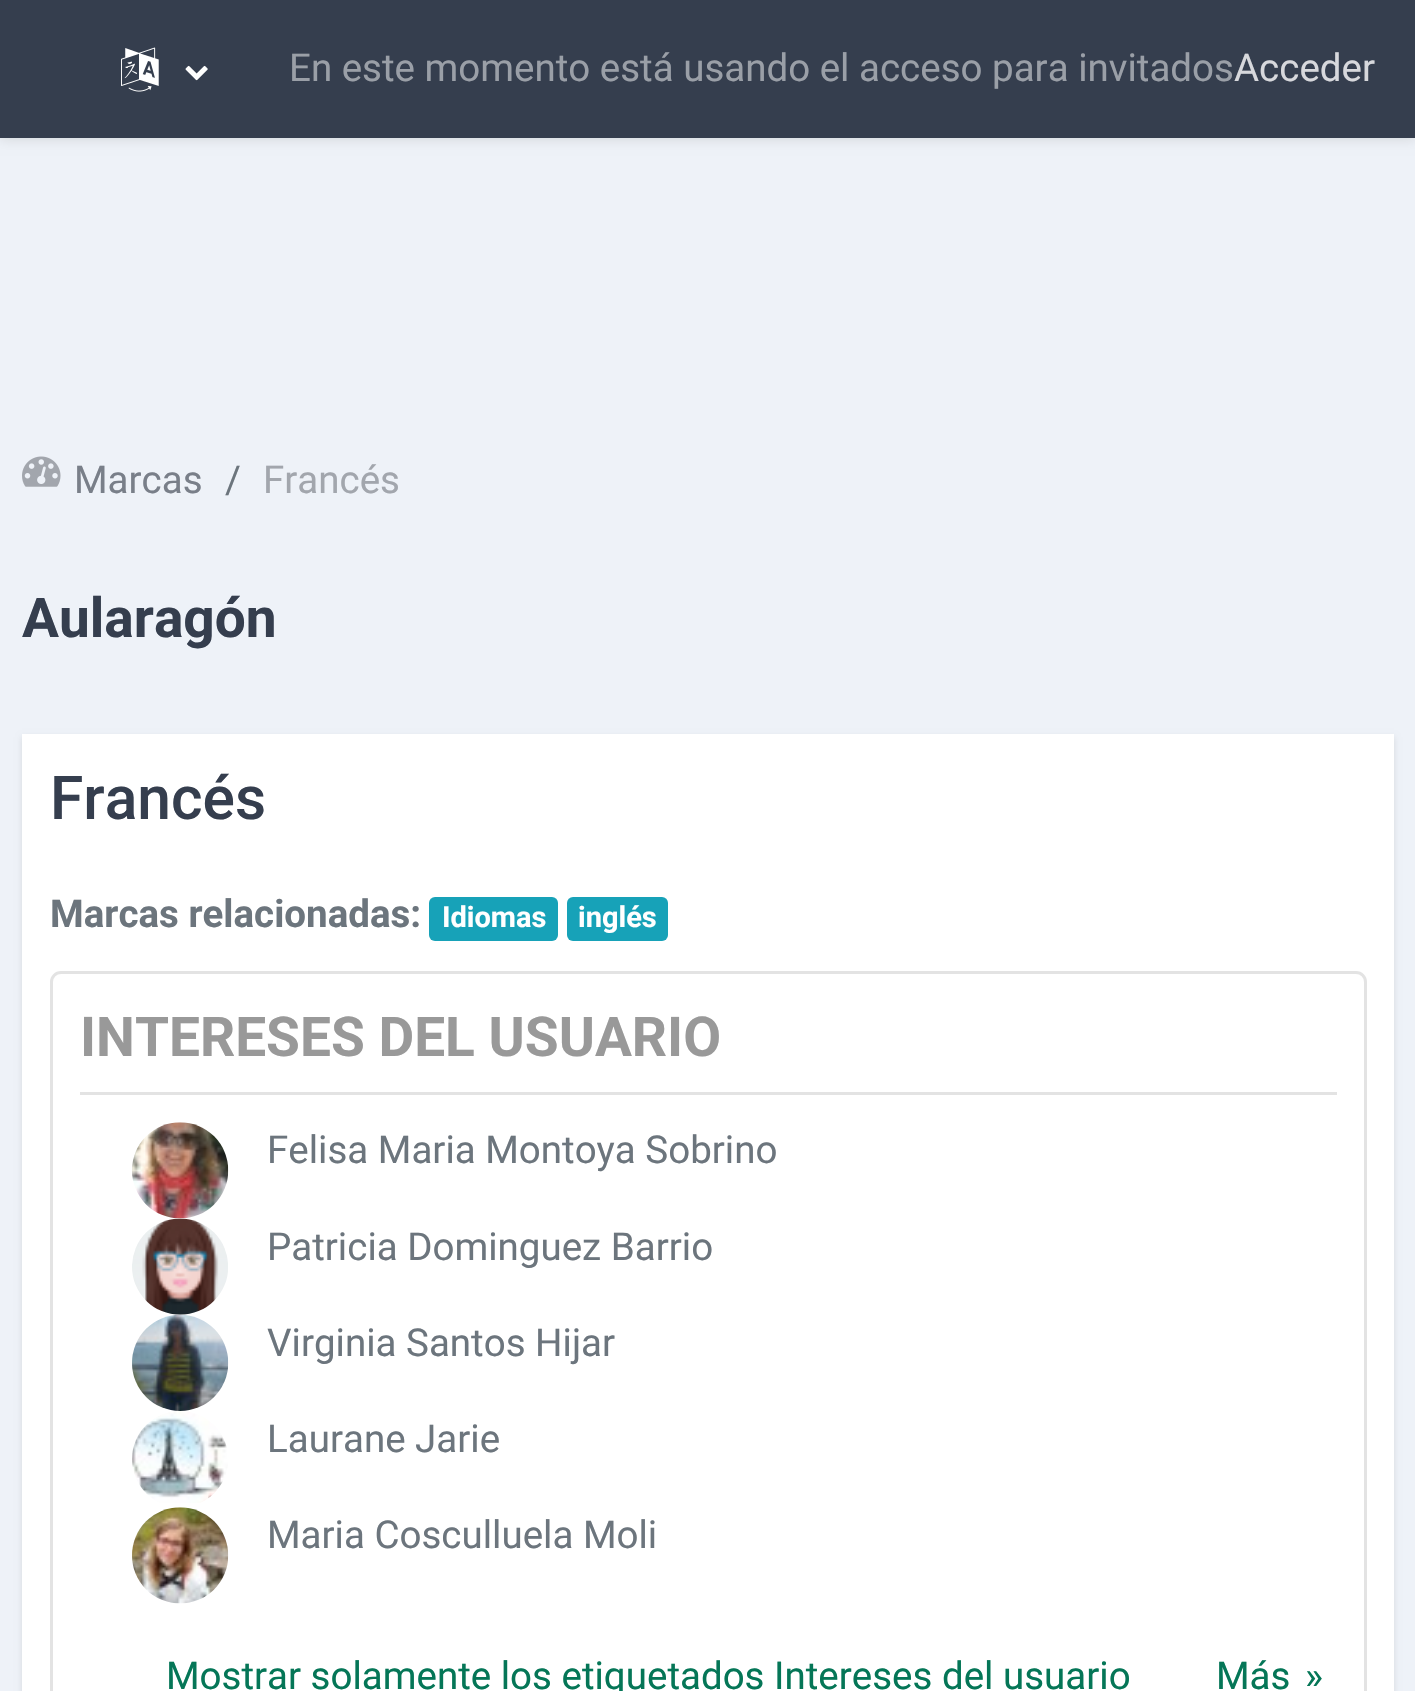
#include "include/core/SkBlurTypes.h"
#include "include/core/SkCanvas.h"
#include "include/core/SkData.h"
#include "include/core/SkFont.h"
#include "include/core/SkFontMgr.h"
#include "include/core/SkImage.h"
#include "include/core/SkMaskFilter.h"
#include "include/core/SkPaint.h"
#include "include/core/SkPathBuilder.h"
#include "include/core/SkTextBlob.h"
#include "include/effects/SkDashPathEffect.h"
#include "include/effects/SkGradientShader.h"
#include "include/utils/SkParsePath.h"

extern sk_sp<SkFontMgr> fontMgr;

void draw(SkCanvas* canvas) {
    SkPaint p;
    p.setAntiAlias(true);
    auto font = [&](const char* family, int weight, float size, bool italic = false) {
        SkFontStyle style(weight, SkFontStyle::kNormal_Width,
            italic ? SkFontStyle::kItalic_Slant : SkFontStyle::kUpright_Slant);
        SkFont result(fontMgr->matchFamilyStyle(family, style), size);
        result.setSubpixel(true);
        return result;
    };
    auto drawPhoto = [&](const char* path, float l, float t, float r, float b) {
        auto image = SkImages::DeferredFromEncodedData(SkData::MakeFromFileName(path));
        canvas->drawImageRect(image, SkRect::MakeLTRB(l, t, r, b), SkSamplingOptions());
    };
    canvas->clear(0xFFEEF2F8);
    p.setColor(0x1A000000);
    p.setMaskFilter(SkMaskFilter::MakeBlur(kNormal_SkBlurStyle, 5.5f));
    canvas->drawRect(SkRect::MakeLTRB(0, 3, 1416, 140), p);
    p.setMaskFilter(nullptr);
    p.setColor(0xFF353E4E);
    canvas->drawRect(SkRect::MakeLTRB(0, 0, 1415, 138), p);
    drawPhoto("media/1.png", 121, 47, 159, 92);
    drawPhoto("media/2.png", 185, 65, 208, 81);
    auto font1 = font("Roboto", 400, 38.5f);
    p.setColor(0xFF9A9FA7);
    canvas->drawString("En este momento está usando el acceso para invitados", 289, 81, font1, p);
    p.setColor(0xFFD7D8DC);
    canvas->drawString("Acceder", 1234, 81, font1, p);
    drawPhoto("media/3.png", 22, 456, 61, 487);
    p.setColor(0xFF797F89);
    canvas->drawString("Marcas", 74, 493, font1, p);
    p.setColor(0xFF6C757D);
    canvas->drawString("/", 225, 493, font1, p);
    p.setColor(0xFFA2A6AD);
    canvas->drawString("Francés", 263, 493, font1, p);
    auto font2 = font("Roboto", 700, 55);
    p.setColor(0xFF353E4E);
    canvas->drawString("Aularagón", 22, 637, font2, p);
    p.setColor(0x1A000000);
    p.setMaskFilter(SkMaskFilter::MakeBlur(kNormal_SkBlurStyle, 3));
    canvas->drawRect(SkRect::MakeLTRB(22, 737, 1394, 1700), p);
    p.setMaskFilter(nullptr);
    p.setColor(0xFFFFFFFF);
    canvas->drawRect(SkRect::MakeLTRB(22, 734, 1394, 1691), p);
    auto font3 = font("Roboto", 500, 60.5f);
    p.setColor(0xFF353E4E);
    canvas->drawString("Francés", 50, 819, font3, p);
    auto font4 = font("Roboto", 700, 38.5f);
    p.setColor(0xFF6C757D);
    canvas->drawString("Marcas relacionadas:", 50, 927, font4, p);
    p.setColor(0xFF17A2B8);
    canvas->drawRoundRect(SkRect::MakeLTRB(429, 897, 558, 941), 6, 6, p);
    auto font5 = font("Roboto", 700, 29);
    p.setColor(0xFFFFFFFF);
    canvas->drawString("Idiomas", 442, 927, font5, p);
    p.setColor(0xFF17A2B8);
    canvas->drawRoundRect(SkRect::MakeLTRB(567, 897, 668, 941), 6, 6, p);
    p.setColor(0xFFFFFFFF);
    canvas->drawString("inglés", 578, 927, font5, p);
    p.setStyle(SkPaint::kStroke_Style);
    p.setStrokeWidth(3);
    p.setColor(0xFFE3E3E3);
    canvas->drawRoundRect(SkRect::MakeLTRB(51.5f, 972.5f, 1365.5f, 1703.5f), 9.5f, 9.5f, p);
    p.setStyle(SkPaint::kFill_Style);
    canvas->drawRect(SkRect::MakeLTRB(80, 1092, 1337, 1095), p);
    p.setColor(0xFF999999);
    canvas->drawString("INTERESES DEL USUARIO", 80, 1056, font2, p);
    drawPhoto("media/4.png", 132, 1122, 229, 1219);
    p.setColor(0xFF6C757D);
    canvas->drawString("Felisa Maria Montoya Sobrino", 267, 1163, font1, p);
    drawPhoto("media/5.png", 132, 1218, 228, 1315);
    canvas->drawString("Patricia Dominguez Barrio", 267, 1260, font1, p);
    drawPhoto("media/6.png", 132, 1314, 229, 1411);
    canvas->drawString("Virginia Santos Hijar", 267, 1356, font1, p);
    drawPhoto("media/7.png", 132, 1411, 228, 1503);
    canvas->drawString("Laurane Jarie", 267, 1452, font1, p);
    drawPhoto("media/8.png", 132, 1507, 229, 1604);
    canvas->drawString("Maria Cosculluela Moli", 267, 1548, font1, p);
    p.setColor(0xFF057657);
    {
        const struct { const char* s; float x, y; } items[] = {
            {"Mostrar solamente los etiquetados Intereses del usuario", 166, 1689},
            {"Más", 1216, 1689},
            {"»", 1305, 1689},
        };
        for (auto [s, x, y] : items) {
            canvas->drawString(s, x, y, font1, p);
        }
    }
}
